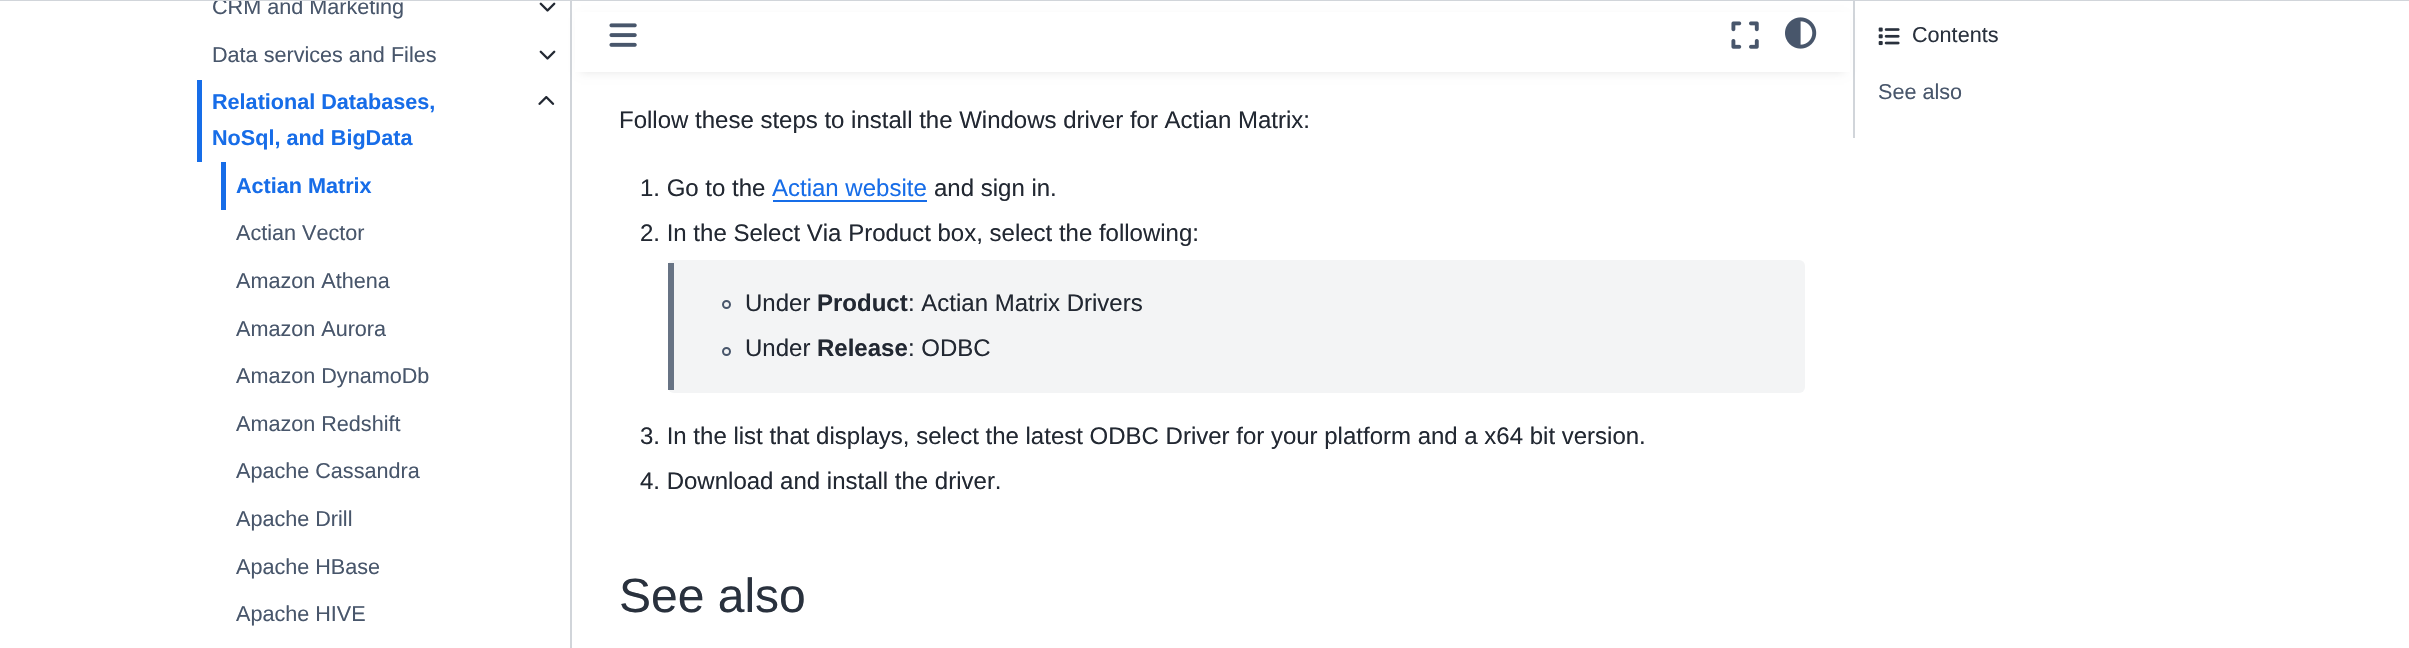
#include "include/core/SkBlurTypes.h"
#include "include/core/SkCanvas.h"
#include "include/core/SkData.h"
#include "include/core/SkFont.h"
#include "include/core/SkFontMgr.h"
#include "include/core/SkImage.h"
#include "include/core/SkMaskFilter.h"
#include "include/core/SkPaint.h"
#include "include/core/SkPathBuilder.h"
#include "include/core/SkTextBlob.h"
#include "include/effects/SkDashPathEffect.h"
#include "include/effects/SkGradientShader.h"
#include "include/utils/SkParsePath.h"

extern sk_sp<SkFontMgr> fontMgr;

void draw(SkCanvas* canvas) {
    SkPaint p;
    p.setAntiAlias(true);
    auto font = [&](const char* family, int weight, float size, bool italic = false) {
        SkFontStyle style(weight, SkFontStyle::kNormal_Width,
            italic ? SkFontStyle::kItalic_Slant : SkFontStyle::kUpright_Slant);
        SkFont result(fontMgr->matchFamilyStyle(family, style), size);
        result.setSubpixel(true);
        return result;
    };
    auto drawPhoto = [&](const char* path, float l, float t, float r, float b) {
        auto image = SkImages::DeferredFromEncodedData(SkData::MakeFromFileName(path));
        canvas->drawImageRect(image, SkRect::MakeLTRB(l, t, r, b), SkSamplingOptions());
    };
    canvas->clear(0xFFFFFFFF);
    p.setColor(0xFFD1D5DA);
    canvas->drawRect(SkRect::MakeLTRB(570, 0, 572, 648), p);
    auto font1 = font("Liberation Sans", 400, 21.6f);
    p.setColor(0xFF48566B);
    canvas->drawString("CRM and Marketing", 212, 14, font1, p);
    p.setColor(0xFFD1D5DA);
    canvas->drawRect(SkRect::MakeLTRB(1853, 0, 1855, 138), p);
    canvas->drawRect(SkRect::MakeLTRB(0, 0, 2409, 1), p);
    drawPhoto("media/1.png", 539, 2, 556, 12);
    p.setColor(0xFF48566B);
    canvas->drawString("Data services and Files", 212, 62, font1, p);
    drawPhoto("media/1.png", 539, 50, 556, 60);
    p.setColor(0xFF176DE8);
    canvas->drawRect(SkRect::MakeLTRB(197, 80, 202, 162), p);
    auto font2 = font("Liberation Sans", 700, 21.6f);
    canvas->drawString("Relational Databases,", 212, 109, font2, p);
    canvas->drawString("NoSql, and BigData", 212, 145, font2, p);
    drawPhoto("media/2.png", 538, 96, 555, 105);
    canvas->drawRect(SkRect::MakeLTRB(221, 162, 226, 210), p);
    canvas->drawString("Actian Matrix", 236, 193, font2, p);
    p.setColor(0xFF48566B);
    {
        const struct { const char* s; float x, y; } items[] = {
            {"Actian Vector", 236, 240},
            {"Amazon Athena", 236, 288},
            {"Amazon Aurora", 236, 336},
            {"Amazon DynamoDb", 236, 383},
            {"Amazon Redshift", 236, 431},
            {"Apache Cassandra", 236, 478},
            {"Apache Drill", 236, 526},
            {"Apache HBase", 236, 574},
            {"Apache HIVE", 236, 621},
        };
        for (auto [s, x, y] : items) {
            canvas->drawString(s, x, y, font1, p);
        }
    }
    drawPhoto("media/3.png", 1878, 27, 1900, 46);
    p.setColor(0xFF29313D);
    canvas->drawString("Contents", 1912, 42, font1, p);
    p.setColor(0xFF48566B);
    canvas->drawString("See also", 1878, 99, font1, p);
    p.setColor(0x1A000000);
    p.setMaskFilter(SkMaskFilter::MakeBlur(kNormal_SkBlurStyle, 4.5f));
    canvas->drawRect(SkRect::MakeLTRB(581, 18, 1844, 72), p);
    p.setMaskFilter(nullptr);
    p.setColor(0xFFFFFFFF);
    canvas->drawRect(SkRect::MakeLTRB(575, 12, 1850, 72), p);
    drawPhoto("media/4.png", 609, 23, 637, 47);
    drawPhoto("media/5.png", 1731, 21, 1759, 49);
    drawPhoto("media/6.png", 1785, 17, 1817, 49);
    auto font3 = font("Liberation Sans", 400, 24);
    p.setColor(0xFF222832);
    canvas->drawString("Follow these steps to install the Windows driver for Actian Matrix:", 619, 128, font3, p);
    canvas->drawString("1. Go to the", 640, 196, font3, p);
    p.setColor(0xFF176DE8);
    canvas->drawString("Actian website", 772, 196, font3, p);
    canvas->drawRect(SkRect::MakeLTRB(773, 200, 927, 202), p);
    p.setColor(0xFF222832);
    canvas->drawString("and sign in.", 934, 196, font3, p);
    canvas->drawString("2. In the Select Via Product box, select the following:", 640, 241, font3, p);
    p.setColor(0xFFF3F4F5);
    canvas->drawRoundRect(SkRect::MakeLTRB(668, 260, 1805, 393), 6, 6, p);
    p.setColor(0xFF677384);
    canvas->drawRect(SkRect::MakeLTRB(668, 263, 674, 390), p);
    p.setStyle(SkPaint::kStroke_Style);
    p.setStrokeWidth(2);
    p.setColor(0xFF48566B);
    canvas->drawCircle(726.5f, 304.5f, 3.5f, p);
    p.setStyle(SkPaint::kFill_Style);
    p.setColor(0xFF222832);
    canvas->drawString("Under", 745, 311, font3, p);
    auto font4 = font("Liberation Sans", 700, 24);
    canvas->drawString("Product", 817, 311, font4, p);
    canvas->drawString(": Actian Matrix Drivers", 908, 311, font3, p);
    p.setStyle(SkPaint::kStroke_Style);
    p.setColor(0xFF48566B);
    canvas->drawCircle(726.5f, 351.5f, 3.5f, p);
    p.setStyle(SkPaint::kFill_Style);
    p.setColor(0xFF222832);
    canvas->drawString("Under", 745, 356, font3, p);
    canvas->drawString("Release", 817, 356, font4, p);
    {
        const struct { const char* s; float x, y; } items[] = {
            {": ODBC", 908, 356},
            {"3. In the list that displays, select the latest ODBC Driver for your platform and a x64 bit version.", 640, 444},
            {"4. Download and install the driver.", 640, 489},
        };
        for (auto [s, x, y] : items) {
            canvas->drawString(s, x, y, font3, p);
        }
    }
    auto font5 = font("Liberation Sans", 400, 48);
    p.setColor(0xFF29313D);
    canvas->drawString("See also", 619, 612, font5, p);
}
